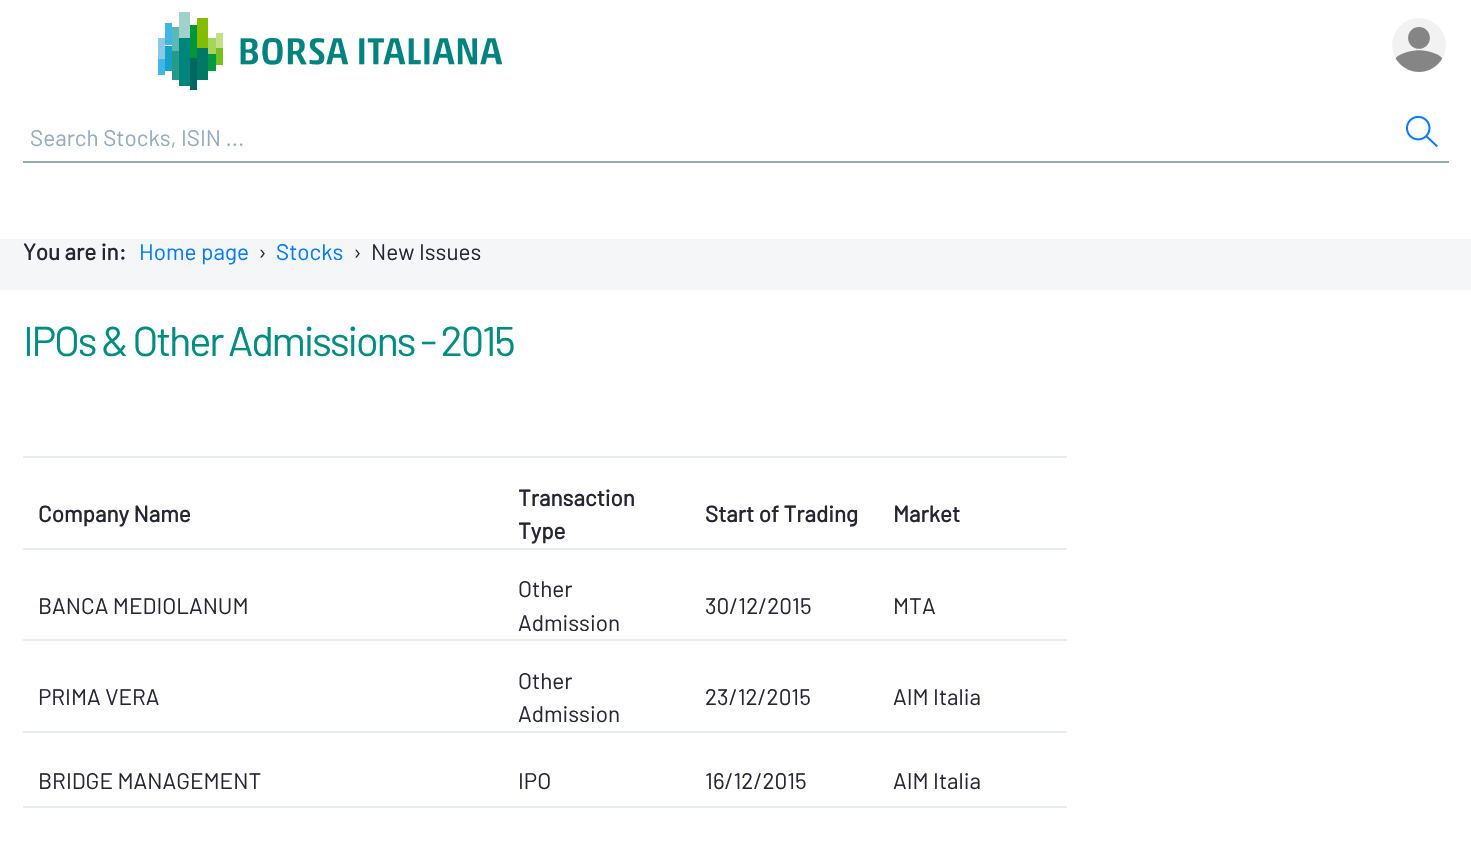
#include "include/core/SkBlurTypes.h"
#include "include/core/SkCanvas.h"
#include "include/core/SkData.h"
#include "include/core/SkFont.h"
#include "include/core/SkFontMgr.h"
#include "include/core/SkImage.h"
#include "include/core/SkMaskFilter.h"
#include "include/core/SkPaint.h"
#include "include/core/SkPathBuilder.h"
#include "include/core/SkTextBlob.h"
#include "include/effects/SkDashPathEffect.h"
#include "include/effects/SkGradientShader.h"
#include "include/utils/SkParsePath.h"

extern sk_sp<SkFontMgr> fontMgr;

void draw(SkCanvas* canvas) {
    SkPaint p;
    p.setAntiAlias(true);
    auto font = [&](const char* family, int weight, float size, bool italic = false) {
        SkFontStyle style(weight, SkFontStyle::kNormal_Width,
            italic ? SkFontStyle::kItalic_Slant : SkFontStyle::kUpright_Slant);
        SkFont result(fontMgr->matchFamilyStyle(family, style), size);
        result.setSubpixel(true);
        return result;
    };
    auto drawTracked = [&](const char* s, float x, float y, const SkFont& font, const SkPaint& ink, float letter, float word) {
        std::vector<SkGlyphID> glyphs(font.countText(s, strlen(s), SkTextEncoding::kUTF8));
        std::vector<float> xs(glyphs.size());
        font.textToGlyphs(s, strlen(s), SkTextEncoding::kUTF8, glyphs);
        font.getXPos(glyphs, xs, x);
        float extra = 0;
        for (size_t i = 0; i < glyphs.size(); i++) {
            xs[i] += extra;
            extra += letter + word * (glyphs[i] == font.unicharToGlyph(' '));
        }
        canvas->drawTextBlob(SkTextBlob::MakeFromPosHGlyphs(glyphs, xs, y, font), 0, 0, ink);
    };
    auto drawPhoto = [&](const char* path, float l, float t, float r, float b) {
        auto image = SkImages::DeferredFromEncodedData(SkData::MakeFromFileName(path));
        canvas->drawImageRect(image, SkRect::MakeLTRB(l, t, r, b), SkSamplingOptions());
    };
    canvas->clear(0xFFFFFFFF);
    drawPhoto("media/1.png", 158, 12, 503, 90);
    drawPhoto("media/2.png", 1392, 18, 1446, 72);
    p.setColor(0xFF98A9BC);
    canvas->drawRect(SkRect::MakeLTRB(23, 161, 1449, 163), p);
    auto font1 = font("Barlow", 400, 22.5f);
    canvas->drawString("Search Stocks, ISIN ...", 30, 146, font1, p);
    drawPhoto("media/3.png", 1406, 115, 1438, 148);
    p.setColor(0xFFF5F6F7);
    canvas->drawRect(SkRect::MakeLTRB(0, 239, 1471, 290), p);
    auto font2 = font("Barlow", 700, 22.5f);
    p.setColor(0xFF252631);
    canvas->drawString("You are in:", 23, 260, font2, p);
    p.setColor(0xFF007AFF);
    canvas->drawString("Home page", 139, 260, font1, p);
    p.setColor(0xFF252631);
    canvas->drawString("›", 258, 260, font1, p);
    p.setColor(0xFF007AFF);
    canvas->drawString("Stocks", 276, 260, font1, p);
    p.setColor(0xFF252631);
    canvas->drawString("›", 353, 260, font1, p);
    canvas->drawString("New Issues", 371, 260, font1, p);
    auto font3 = font("Barlow", 400, 41.6f);
    p.setColor(0xFF008D7F);
    drawTracked("IPOs & Other Admissions - 2015", 23, 356, font3, p, -2.25f, 0);
    p.setColor(0xFFE8ECEF);
    canvas->drawRect(SkRect::MakeLTRB(23, 456, 1067, 458), p);
    p.setColor(0xFF252631);
    {
        const struct { const char* s; float x, y; } items[] = {
            {"Company Name", 38, 522},
            {"Transaction", 518, 506},
            {"Type", 518, 539},
            {"Start of Trading", 705, 522},
            {"Market", 893, 522},
        };
        for (auto [s, x, y] : items) {
            canvas->drawString(s, x, y, font2, p);
        }
    }
    p.setColor(0xFFE8ECEF);
    canvas->drawRect(SkRect::MakeLTRB(23, 548, 1067, 550), p);
    p.setColor(0xFF252631);
    {
        const struct { const char* s; float x, y; } items[] = {
            {"BANCA MEDIOLANUM", 38, 614},
            {"Other", 518, 597},
            {"Admission", 518, 631},
            {"30/12/2015", 705, 614},
            {"MTA", 893, 614},
        };
        for (auto [s, x, y] : items) {
            canvas->drawString(s, x, y, font1, p);
        }
    }
    p.setColor(0xFFE8ECEF);
    canvas->drawRect(SkRect::MakeLTRB(23, 639, 1067, 641), p);
    p.setColor(0xFF252631);
    {
        const struct { const char* s; float x, y; } items[] = {
            {"PRIMA VERA", 38, 705},
            {"Other", 518, 689},
            {"Admission", 518, 722},
            {"23/12/2015", 705, 705},
            {"AIM Italia", 893, 705},
        };
        for (auto [s, x, y] : items) {
            canvas->drawString(s, x, y, font1, p);
        }
    }
    p.setColor(0xFFE8ECEF);
    canvas->drawRect(SkRect::MakeLTRB(23, 731, 1067, 733), p);
    p.setColor(0xFF252631);
    {
        const struct { const char* s; float x, y; } items[] = {
            {"BRIDGE MANAGEMENT", 38, 789},
            {"IPO", 518, 789},
            {"16/12/2015", 705, 789},
            {"AIM Italia", 893, 789},
        };
        for (auto [s, x, y] : items) {
            canvas->drawString(s, x, y, font1, p);
        }
    }
    p.setColor(0xFFE8ECEF);
    canvas->drawRect(SkRect::MakeLTRB(23, 806, 1067, 808), p);
}
